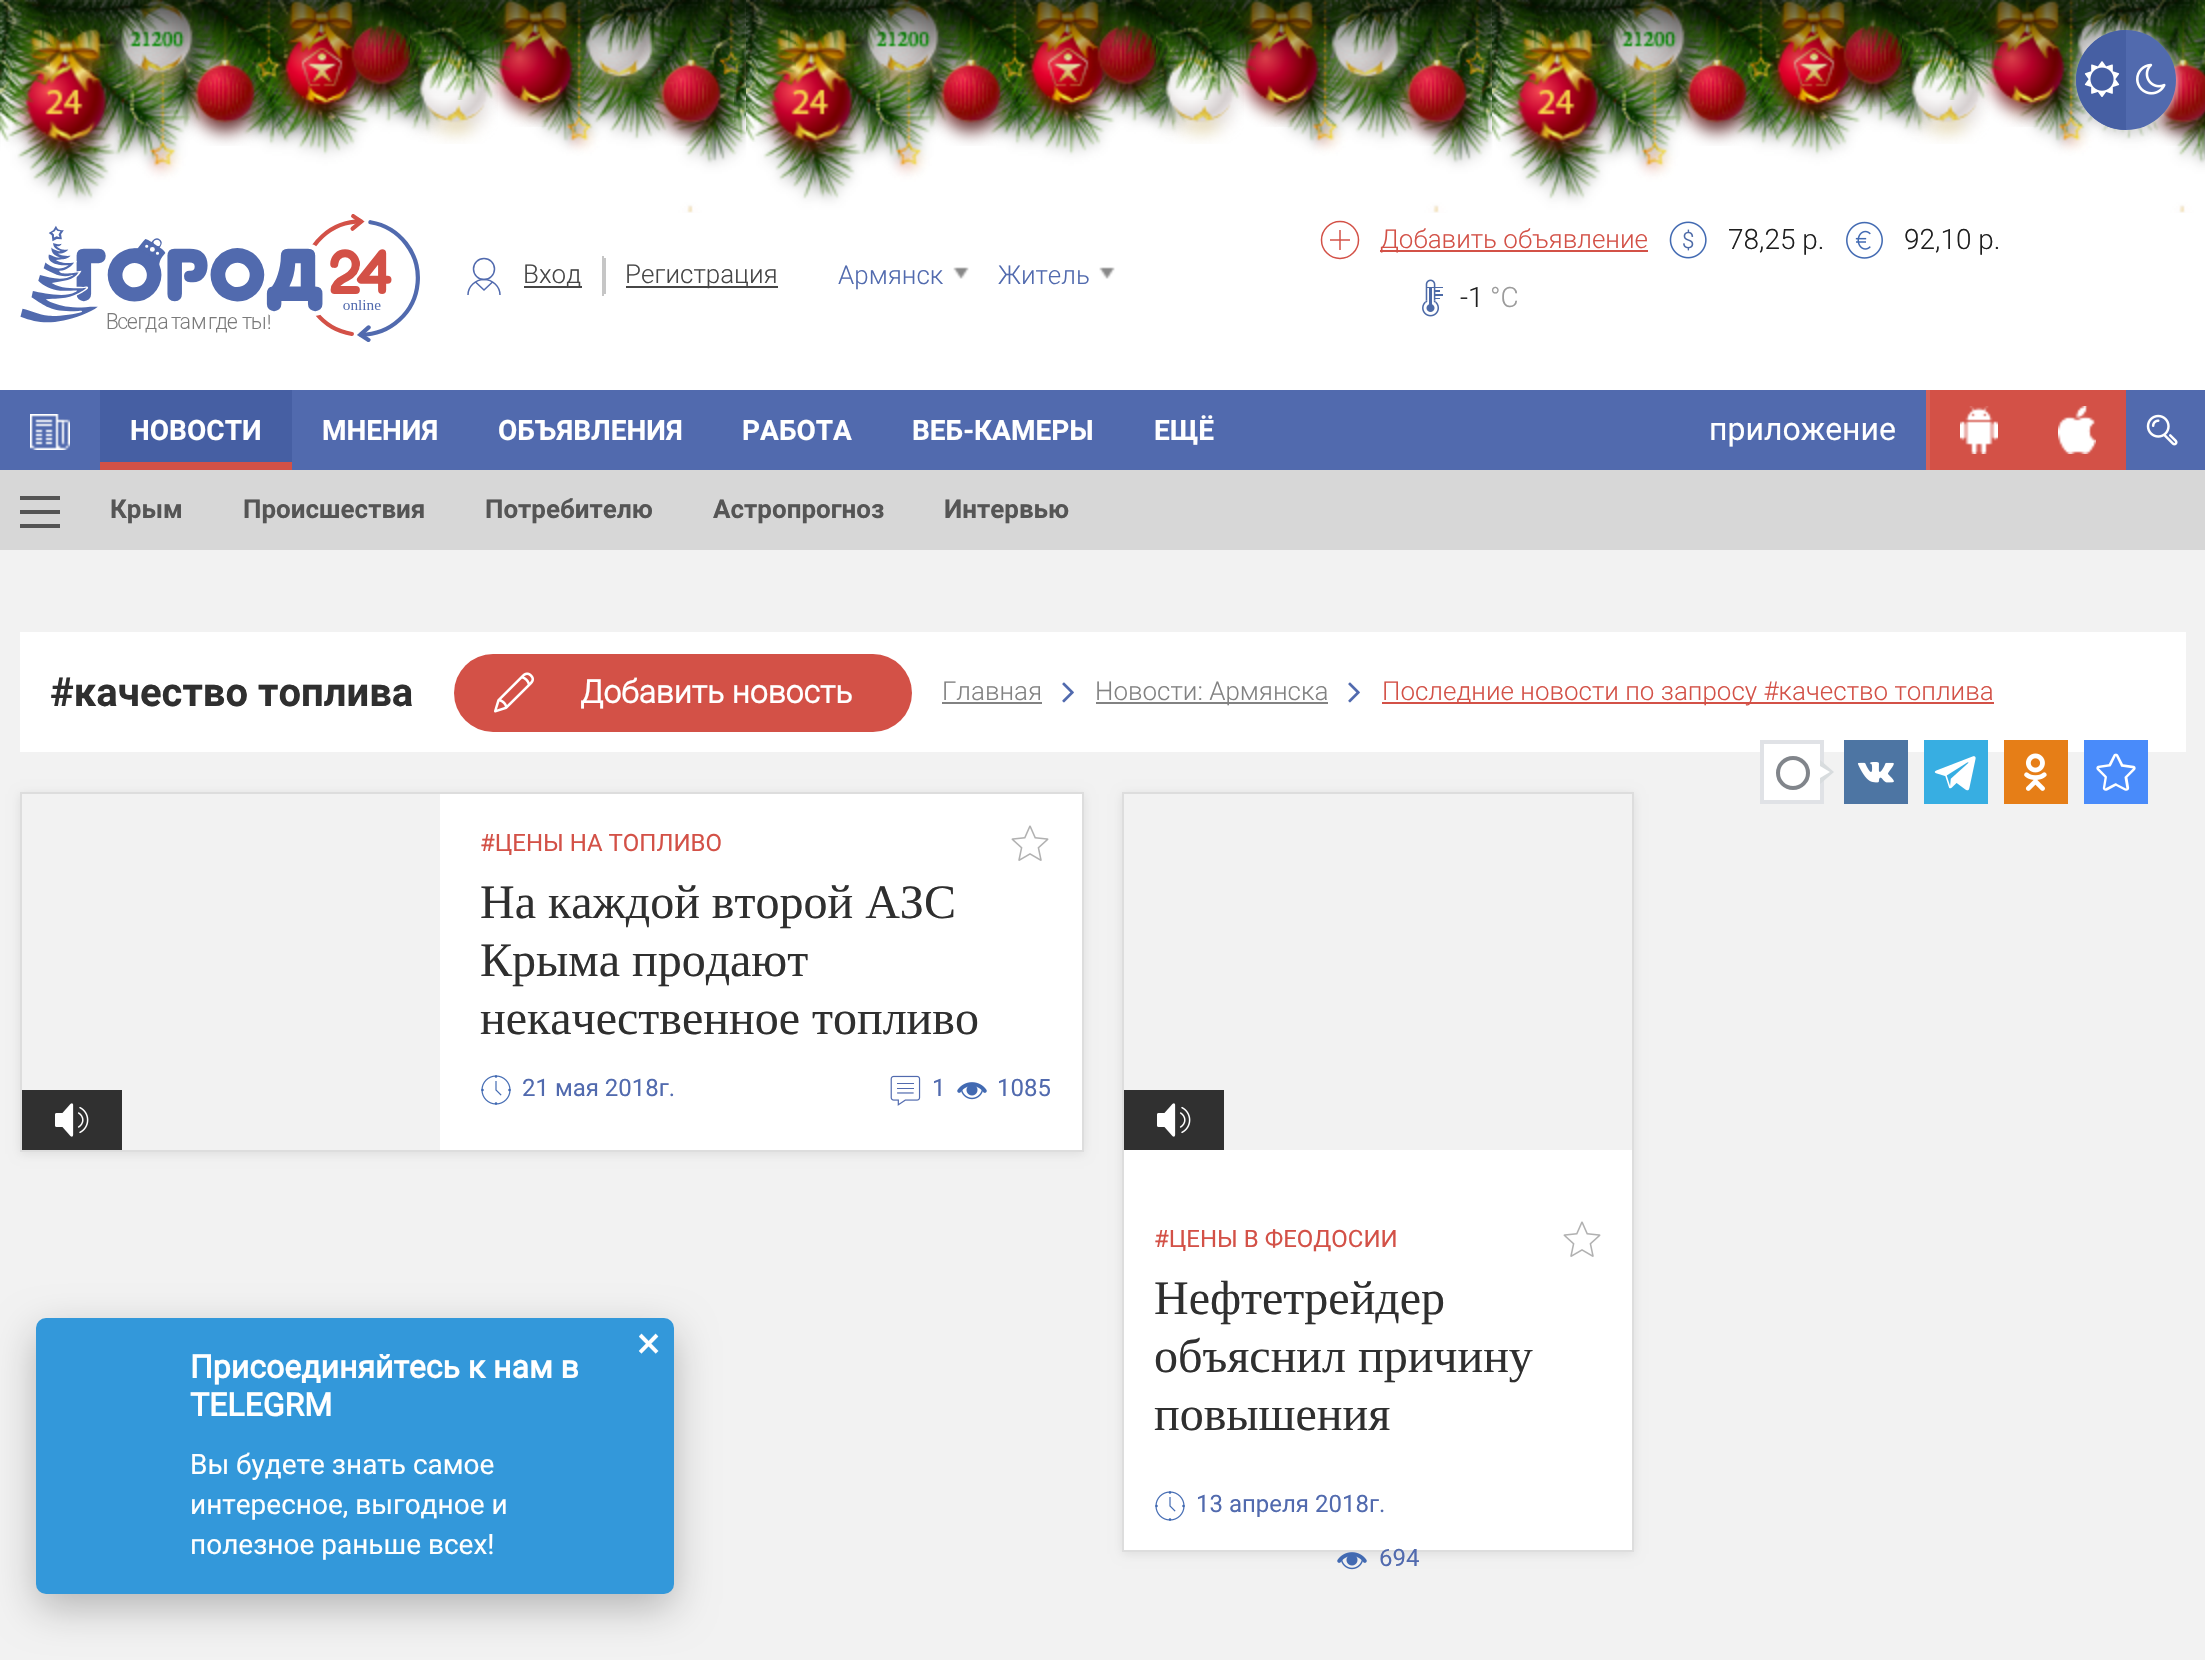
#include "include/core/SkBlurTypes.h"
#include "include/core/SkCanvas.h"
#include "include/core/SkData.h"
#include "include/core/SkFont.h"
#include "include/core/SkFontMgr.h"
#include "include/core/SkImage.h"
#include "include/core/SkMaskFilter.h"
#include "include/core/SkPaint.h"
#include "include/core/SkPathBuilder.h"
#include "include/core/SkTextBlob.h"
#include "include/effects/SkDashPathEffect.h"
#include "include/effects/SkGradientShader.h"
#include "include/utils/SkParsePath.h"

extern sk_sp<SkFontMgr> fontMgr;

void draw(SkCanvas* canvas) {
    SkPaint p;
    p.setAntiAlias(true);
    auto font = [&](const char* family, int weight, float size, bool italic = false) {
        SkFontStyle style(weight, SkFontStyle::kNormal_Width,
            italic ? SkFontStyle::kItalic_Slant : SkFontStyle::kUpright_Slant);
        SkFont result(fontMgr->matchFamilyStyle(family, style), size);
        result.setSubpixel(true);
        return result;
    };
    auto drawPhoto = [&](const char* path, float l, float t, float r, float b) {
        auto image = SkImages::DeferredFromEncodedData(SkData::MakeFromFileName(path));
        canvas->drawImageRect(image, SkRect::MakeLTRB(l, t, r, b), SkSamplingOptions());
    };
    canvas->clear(0xFFF2F2F2);
    p.setColor(0xFFFFFFFF);
    canvas->drawRect(SkRect::MakeLTRB(0, 0, 2205, 390), p);
    drawPhoto("media/1.png", 0, 0, 2205, 213);
    drawPhoto("media/15.png", 12, 27, 120, 164);
    drawPhoto("media/2.png", 0, 0, 50, 142);
    drawPhoto("media/4.png", 108, 0, 206, 93);
    drawPhoto("media/3.png", 50, 0, 172, 54);
    drawPhoto("media/5.png", 273, 0, 370, 127);
    drawPhoto("media/6.png", 340, 0, 421, 107);
    drawPhoto("media/12.png", 408, 12, 498, 144);
    drawPhoto("media/7.png", 354, 0, 410, 62);
    drawPhoto("media/9.png", 487, 0, 584, 127);
    drawPhoto("media/8.png", 410, 0, 510, 100);
    drawPhoto("media/10.png", 574, 0, 666, 98);
    drawPhoto("media/11.png", 183, 18, 266, 146);
    drawPhoto("media/16.png", 650, 20, 733, 146);
    drawPhoto("media/13.png", 578, 0, 734, 56);
    drawPhoto("media/14.png", 734, 0, 746, 138);
    drawPhoto("media/15.png", 758, 27, 866, 164);
    drawPhoto("media/2.png", 746, 0, 796, 142);
    drawPhoto("media/4.png", 854, 0, 952, 93);
    drawPhoto("media/3.png", 796, 0, 918, 54);
    drawPhoto("media/5.png", 1019, 0, 1116, 127);
    drawPhoto("media/6.png", 1086, 0, 1167, 107);
    drawPhoto("media/12.png", 1154, 12, 1244, 144);
    drawPhoto("media/7.png", 1100, 0, 1156, 62);
    drawPhoto("media/9.png", 1233, 0, 1330, 127);
    drawPhoto("media/8.png", 1156, 0, 1256, 100);
    drawPhoto("media/10.png", 1320, 0, 1412, 98);
    drawPhoto("media/11.png", 929, 18, 1012, 146);
    drawPhoto("media/16.png", 1396, 20, 1479, 146);
    drawPhoto("media/13.png", 1324, 0, 1480, 56);
    drawPhoto("media/14.png", 1480, 0, 1492, 138);
    drawPhoto("media/15.png", 1504, 27, 1612, 164);
    drawPhoto("media/2.png", 1492, 0, 1542, 142);
    drawPhoto("media/4.png", 1600, 0, 1698, 93);
    drawPhoto("media/3.png", 1542, 0, 1664, 54);
    drawPhoto("media/5.png", 1765, 0, 1862, 127);
    drawPhoto("media/6.png", 1832, 0, 1913, 107);
    drawPhoto("media/12.png", 1900, 12, 1990, 144);
    drawPhoto("media/7.png", 1846, 0, 1902, 62);
    drawPhoto("media/9.png", 1979, 0, 2076, 127);
    drawPhoto("media/8.png", 1902, 0, 2002, 100);
    drawPhoto("media/17.png", 2066, 0, 2156, 81);
    drawPhoto("media/11.png", 1675, 18, 1758, 146);
    drawPhoto("media/19.png", 2147, 20, 2205, 146);
    drawPhoto("media/18.png", 2070, 0, 2205, 54);
    p.setColor(0xBF000000);
    p.setMaskFilter(SkMaskFilter::MakeBlur(kNormal_SkBlurStyle, 30));
    canvas->drawRect(SkRect::MakeLTRB(0, -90, 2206, 30), p);
    p.setMaskFilter(nullptr);
    p.setColor(0xFFDE7D75);
    canvas->drawRect(SkRect::MakeLTRB(1339, 230, 1341, 250), p);
    p.setColor(0xFFDDDDDD);
    p.setMaskFilter(SkMaskFilter::MakeBlur(kNormal_SkBlurStyle, 5));
    canvas->drawRoundRect(SkRect::MakeLTRB(2076, 32, 2176, 132), 50, 50, p);
    p.setMaskFilter(nullptr);
    p.setColor(0xFF516AAE);
    canvas->drawCircle(2126, 80, 50, p);
    p.setColor(0xFF465FA3);
    canvas->drawPath(SkPathBuilder().moveTo(2126, 30).lineTo(2126, 130).cubicTo(2098.5f, 130, 2076, 107.5f, 2076, 80).cubicTo(2076, 52.5f, 2098.5f, 30, 2126, 30).close().detach(), p);
    drawPhoto("media/20.png", 2084, 61, 2120, 97);
    drawPhoto("media/21.png", 2136, 63, 2166, 95);
    drawPhoto("media/22.png", 20, 214, 420, 342);
    p.setColor(0xFFC6C6C6);
    canvas->drawRect(SkRect::MakeLTRB(602, 256, 604, 296), p);
    p.setStyle(SkPaint::kStroke_Style);
    p.setStrokeWidth(1.5f);
    p.setColor(0xFF516AAE);
    canvas->drawCircle(484, 269, 10.5f, p);
    canvas->drawPath(SkPathBuilder().moveTo(468, 295).cubicTo(468, 286.5f, 475.5f, 279.5f, 484, 279.5f).cubicTo(492.5f, 279.5f, 500, 286.5f, 500, 295).moveTo(475.5f, 282).lineTo(484, 290).lineTo(492.5f, 282).detach(), p);
    p.setStyle(SkPaint::kFill_Style);
    p.setColor(0xFF464646);
    canvas->drawRect(SkRect::MakeLTRB(524, 286, 582, 288), p);
    auto font1 = font("Roboto", 300, 26);
    canvas->drawString("Вход", 523, 283, font1, p);
    p.setColor(0xFFC6C6C6);
    canvas->drawRect(SkRect::MakeLTRB(604, 258, 606, 294), p);
    p.setColor(0xFF464646);
    canvas->drawRect(SkRect::MakeLTRB(626, 286, 778, 288), p);
    canvas->drawString("Регистрация", 625, 283, font1, p);
    p.setColor(0xFF516AAE);
    canvas->drawString("Армянск", 838, 284, font1, p);
    drawPhoto("media/23.png", 953, 267, 969, 279);
    canvas->drawString("Житель", 998, 284, font1, p);
    drawPhoto("media/23.png", 1099, 267, 1115, 279);
    p.setColor(0xFFDE7D75);
    canvas->drawRect(SkRect::MakeLTRB(1330, 239, 1350, 241), p);
    p.setColor(0xFFD65C53);
    canvas->drawRect(SkRect::MakeLTRB(1339, 239, 1341, 241), p);
    p.setStyle(SkPaint::kStroke_Style);
    p.setColor(0xFFD35147);
    canvas->drawCircle(1340, 240, 18.5f, p);
    p.setStyle(SkPaint::kFill_Style);
    canvas->drawRect(SkRect::MakeLTRB(1380, 250, 1648, 252), p);
    canvas->drawString("Добавить объявление", 1380, 248, font1, p);
    drawPhoto("media/24.png", 1669, 221, 1707, 259);
    auto font2 = font("Roboto", 300, 28);
    p.setColor(0xFF1F1F1F);
    canvas->drawString("78,25 р.", 1728, 249, font2, p);
    drawPhoto("media/25.png", 1846, 221, 1883, 259);
    canvas->drawString("92,10 р.", 1904, 249, font2, p);
    drawPhoto("media/26.png", 1422, 279, 1443, 317);
    canvas->drawString("-1", 1460, 307, font2, p);
    p.setColor(0xFF9B9B9B);
    canvas->drawString("°C", 1490, 307, font2, p);
    {
        const struct { float l, t, r, b; SkColor color; } items[] = {
            {0, 390, 1926, 470, 0xFF516AAE},
            {1926, 390, 1930, 470, 0xFFD76158},
            {1930, 390, 2126, 470, 0xFFD35147},
        };
        for (auto [l, t, r, b, color] : items) {
            p.setColor(color);
            canvas->drawRect(SkRect::MakeLTRB(l, t, r, b), p);
        }
    }
    drawPhoto("media/27.png", 2058, 406, 2096, 454);
    p.setColor(0xFF516AAE);
    canvas->drawRect(SkRect::MakeLTRB(2126, 390, 2205, 470), p);
    drawPhoto("media/28.png", 2146, 414, 2178, 446);
    drawPhoto("media/29.png", 30, 414, 70, 450);
    p.setColor(0xFF465FA3);
    canvas->drawRect(SkRect::MakeLTRB(100, 390, 292, 462), p);
    p.setColor(0xFFD35147);
    canvas->drawRect(SkRect::MakeLTRB(100, 462, 292, 470), p);
    auto font3 = font("Roboto", 700, 28);
    p.setColor(0xFFFFFFFF);
    canvas->drawString("НОВОСТИ", 130, 440, font3, p);
    {
        const struct { float l, t, r, b; SkColor color; } items[] = {
            {0, 470, 2205, 550, 0xFFD7D7D7},
            {20, 510, 60, 514, 0xFF555555},
            {20, 496, 60, 500, 0xFF555555},
            {20, 524, 60, 528, 0xFF555555},
        };
        for (auto [l, t, r, b, color] : items) {
            p.setColor(color);
            canvas->drawRect(SkRect::MakeLTRB(l, t, r, b), p);
        }
    }
    auto font4 = font("Roboto", 700, 26);
    {
        const struct { const char* s; float x, y; } items[] = {
            {"Крым", 110, 518},
            {"Происшествия", 243, 518},
            {"Потребителю", 485, 518},
            {"Астропрогноз", 713, 518},
            {"Интервью", 944, 518},
        };
        for (auto [s, x, y] : items) {
            canvas->drawString(s, x, y, font4, p);
        }
    }
    p.setColor(0xFFFFFFFF);
    {
        const struct { const char* s; float x, y; } items[] = {
            {"ЕЩЁ", 1154, 440},
            {"МНЕНИЯ", 322, 440},
            {"ОБЪЯВЛЕНИЯ", 498, 440},
            {"РАБОТА", 742, 440},
            {"ВЕБ-КАМЕРЫ", 912, 440},
        };
        for (auto [s, x, y] : items) {
            canvas->drawString(s, x, y, font3, p);
        }
    }
    auto font5 = font("Roboto", 400, 32);
    canvas->drawString("приложение", 1709, 440, font5, p);
    drawPhoto("media/30.png", 1960, 406, 1998, 454);
    canvas->drawRect(SkRect::MakeLTRB(20, 632, 2186, 752), p);
    auto font6 = font("Roboto", 700, 40);
    p.setColor(0xFF2F2F2F);
    canvas->drawString("#качество топлива", 50, 706, font6, p);
    p.setColor(0xFFD35147);
    canvas->drawRoundRect(SkRect::MakeLTRB(454, 654, 912, 732), 39, 39, p);
    drawPhoto("media/31.png", 494, 672, 534, 713);
    auto font7 = font("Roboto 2", 700, 32);
    p.setColor(0xFFFFFFFF);
    canvas->drawString("Добавить новость", 580, 703, font7, p);
    p.setColor(0xFF828282);
    canvas->drawString("Главная", 942, 700, font1, p);
    canvas->drawRect(SkRect::MakeLTRB(942, 702, 1042, 704), p);
    drawPhoto("media/32.png", 1062, 682, 1074, 703);
    canvas->drawRect(SkRect::MakeLTRB(1096, 702, 1328, 704), p);
    canvas->drawString("Новости: Армянска", 1095, 700, font1, p);
    drawPhoto("media/32.png", 1348, 682, 1360, 703);
    p.setColor(0xFFD35147);
    canvas->drawRect(SkRect::MakeLTRB(1382, 702, 1994, 704), p);
    canvas->drawString("Последние новости по запросу #качество топлива", 1382, 700, font1, p);
    p.setColor(0xFFFFFFFF);
    canvas->drawRect(SkRect::MakeLTRB(1764, 752, 1820, 800), p);
    p.setStyle(SkPaint::kStroke_Style);
    p.setStrokeWidth(4);
    p.setColor(0xFFE0E2E6);
    canvas->drawRect(SkRect::MakeLTRB(1762, 742, 1822, 802), p);
    p.setColor(0xFF81858B);
    canvas->drawCircle(1793, 773, 15, p);
    p.setStyle(SkPaint::kFill_Style);
    p.setColor(0xFFD8DCDE);
    canvas->drawPath(SkPathBuilder().moveTo(1820, 784).lineTo(1820, 760).lineTo(1834, 772).close().detach(), p);
    p.setColor(0xFFFFFFFF);
    canvas->drawPath(SkPathBuilder().moveTo(1820, 778).lineTo(1820, 766).lineTo(1830, 772).close().detach(), p);
    p.setColor(0xFF4D75A3);
    canvas->drawRect(SkRect::MakeLTRB(1844, 740, 1908, 804), p);
    drawPhoto("media/33.png", 1857, 762, 1894, 783);
    p.setColor(0xFF37AEE2);
    canvas->drawRect(SkRect::MakeLTRB(1924, 740, 1988, 804), p);
    drawPhoto("media/34.png", 1934, 756, 1976, 791);
    p.setColor(0xFFE67E17);
    canvas->drawRect(SkRect::MakeLTRB(2004, 740, 2068, 804), p);
    drawPhoto("media/35.png", 2024, 753, 2047, 791);
    p.setColor(0xFF498BFA);
    canvas->drawRect(SkRect::MakeLTRB(2084, 740, 2148, 804), p);
    drawPhoto("media/36.png", 2096, 753, 2136, 791);
    p.setColor(0xFFDDDDDD);
    p.setMaskFilter(SkMaskFilter::MakeBlur(kNormal_SkBlurStyle, 5));
    canvas->drawRect(SkRect::MakeLTRB(20, 794, 1084, 1154), p);
    p.setMaskFilter(nullptr);
    p.setColor(0xFFFFFFFF);
    canvas->drawRect(SkRect::MakeLTRB(440, 794, 1082, 1150), p);
    p.setStyle(SkPaint::kStroke_Style);
    p.setStrokeWidth(2);
    p.setColor(0xFFDDDDDD);
    canvas->drawRect(SkRect::MakeLTRB(21, 793, 1083, 1151), p);
    p.setStyle(SkPaint::kFill_Style);
    p.setColor(0xFFF2F2F2);
    canvas->drawRect(SkRect::MakeLTRB(22, 794, 440, 1150), p);
    p.setColor(0xFF303030);
    canvas->drawRect(SkRect::MakeLTRB(22, 1090, 122, 1150), p);
    drawPhoto("media/37.png", 55, 1103, 89, 1137);
    auto font8 = font("Roboto", 400, 24);
    p.setColor(0xFFD35147);
    canvas->drawString("#ЦЕНЫ НА ТОПЛИВО", 480, 851, font8, p);
    drawPhoto("media/38.png", 1011, 825, 1049, 861);
    auto font9 = font("Liberation Serif", 400, 48);
    p.setColor(0xFF2F2F2F);
    {
        const struct { const char* s; float x, y; } items[] = {
            {"На каждой второй АЗС", 480, 918},
            {"Крыма продают", 480, 976},
            {"некачественное топливо", 480, 1034},
        };
        for (auto [s, x, y] : items) {
            canvas->drawString(s, x, y, font9, p);
        }
    }
    drawPhoto("media/39.png", 481, 1075, 511, 1105);
    p.setColor(0xFF516AAE);
    canvas->drawString("21 мая 2018г.", 522, 1096, font8, p);
    drawPhoto("media/40.png", 890, 1075, 921, 1106);
    canvas->drawString("1", 932, 1096, font8, p);
    drawPhoto("media/41.png", 957, 1082, 987, 1100);
    canvas->drawString("1085", 997, 1096, font8, p);
    p.setColor(0xFFDDDDDD);
    p.setMaskFilter(SkMaskFilter::MakeBlur(kNormal_SkBlurStyle, 5));
    canvas->drawRect(SkRect::MakeLTRB(1122, 794, 1634, 1554), p);
    p.setMaskFilter(nullptr);
    p.setColor(0xFFFFFFFF);
    canvas->drawRect(SkRect::MakeLTRB(1124, 1150, 1632, 1550), p);
    p.setStyle(SkPaint::kStroke_Style);
    p.setColor(0xFFDDDDDD);
    canvas->drawRect(SkRect::MakeLTRB(1123, 793, 1633, 1551), p);
    p.setStyle(SkPaint::kFill_Style);
    p.setColor(0xFFF2F2F2);
    canvas->drawRect(SkRect::MakeLTRB(1124, 794, 1632, 1150), p);
    p.setColor(0xFF303030);
    canvas->drawRect(SkRect::MakeLTRB(1124, 1090, 1224, 1150), p);
    drawPhoto("media/37.png", 1157, 1103, 1191, 1137);
    p.setColor(0xFFD35147);
    canvas->drawString("#ЦЕНЫ В ФЕОДОСИИ", 1154, 1247, font8, p);
    drawPhoto("media/38.png", 1563, 1221, 1601, 1257);
    p.setColor(0xFF2F2F2F);
    {
        const struct { const char* s; float x, y; } items[] = {
            {"Нефтетрейдер", 1154, 1314},
            {"объяснил причину", 1154, 1372},
            {"повышения", 1154, 1430},
        };
        for (auto [s, x, y] : items) {
            canvas->drawString(s, x, y, font9, p);
        }
    }
    drawPhoto("media/39.png", 1155, 1491, 1185, 1521);
    p.setColor(0xFF516AAE);
    canvas->drawString("13 апреля 2018г.", 1196, 1512, font8, p);
    drawPhoto("media/42.png", 1337, 1552, 1367, 1570);
    canvas->drawString("694", 1379, 1566, font8, p);
    p.setColor(0x40000000);
    p.setMaskFilter(SkMaskFilter::MakeBlur(kNormal_SkBlurStyle, 20));
    canvas->drawRoundRect(SkRect::MakeLTRB(36, 1332, 674, 1608), 10, 10, p);
    p.setMaskFilter(nullptr);
    p.setColor(0xFF3398DA);
    canvas->drawRoundRect(SkRect::MakeLTRB(36, 1318, 674, 1594), 10, 10, p);
    auto font10 = font("Roboto 2", 400, 44);
    p.setColor(0xFFFFFFFF);
    canvas->drawString("×", 637, 1358, font10, p);
    auto font11 = font("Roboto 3", 700, 32);
    canvas->drawString("Присоединяйтесь к нам в", 190, 1378, font11, p);
    canvas->drawString("TELEGRM", 190, 1416, font11, p);
    auto font12 = font("Roboto", 400, 28);
    {
        const struct { const char* s; float x, y; } items[] = {
            {"Вы будете знать самое", 190, 1474},
            {"интересное, выгодное и", 190, 1514},
            {"полезное раньше всех!", 190, 1554},
        };
        for (auto [s, x, y] : items) {
            canvas->drawString(s, x, y, font12, p);
        }
    }
}
